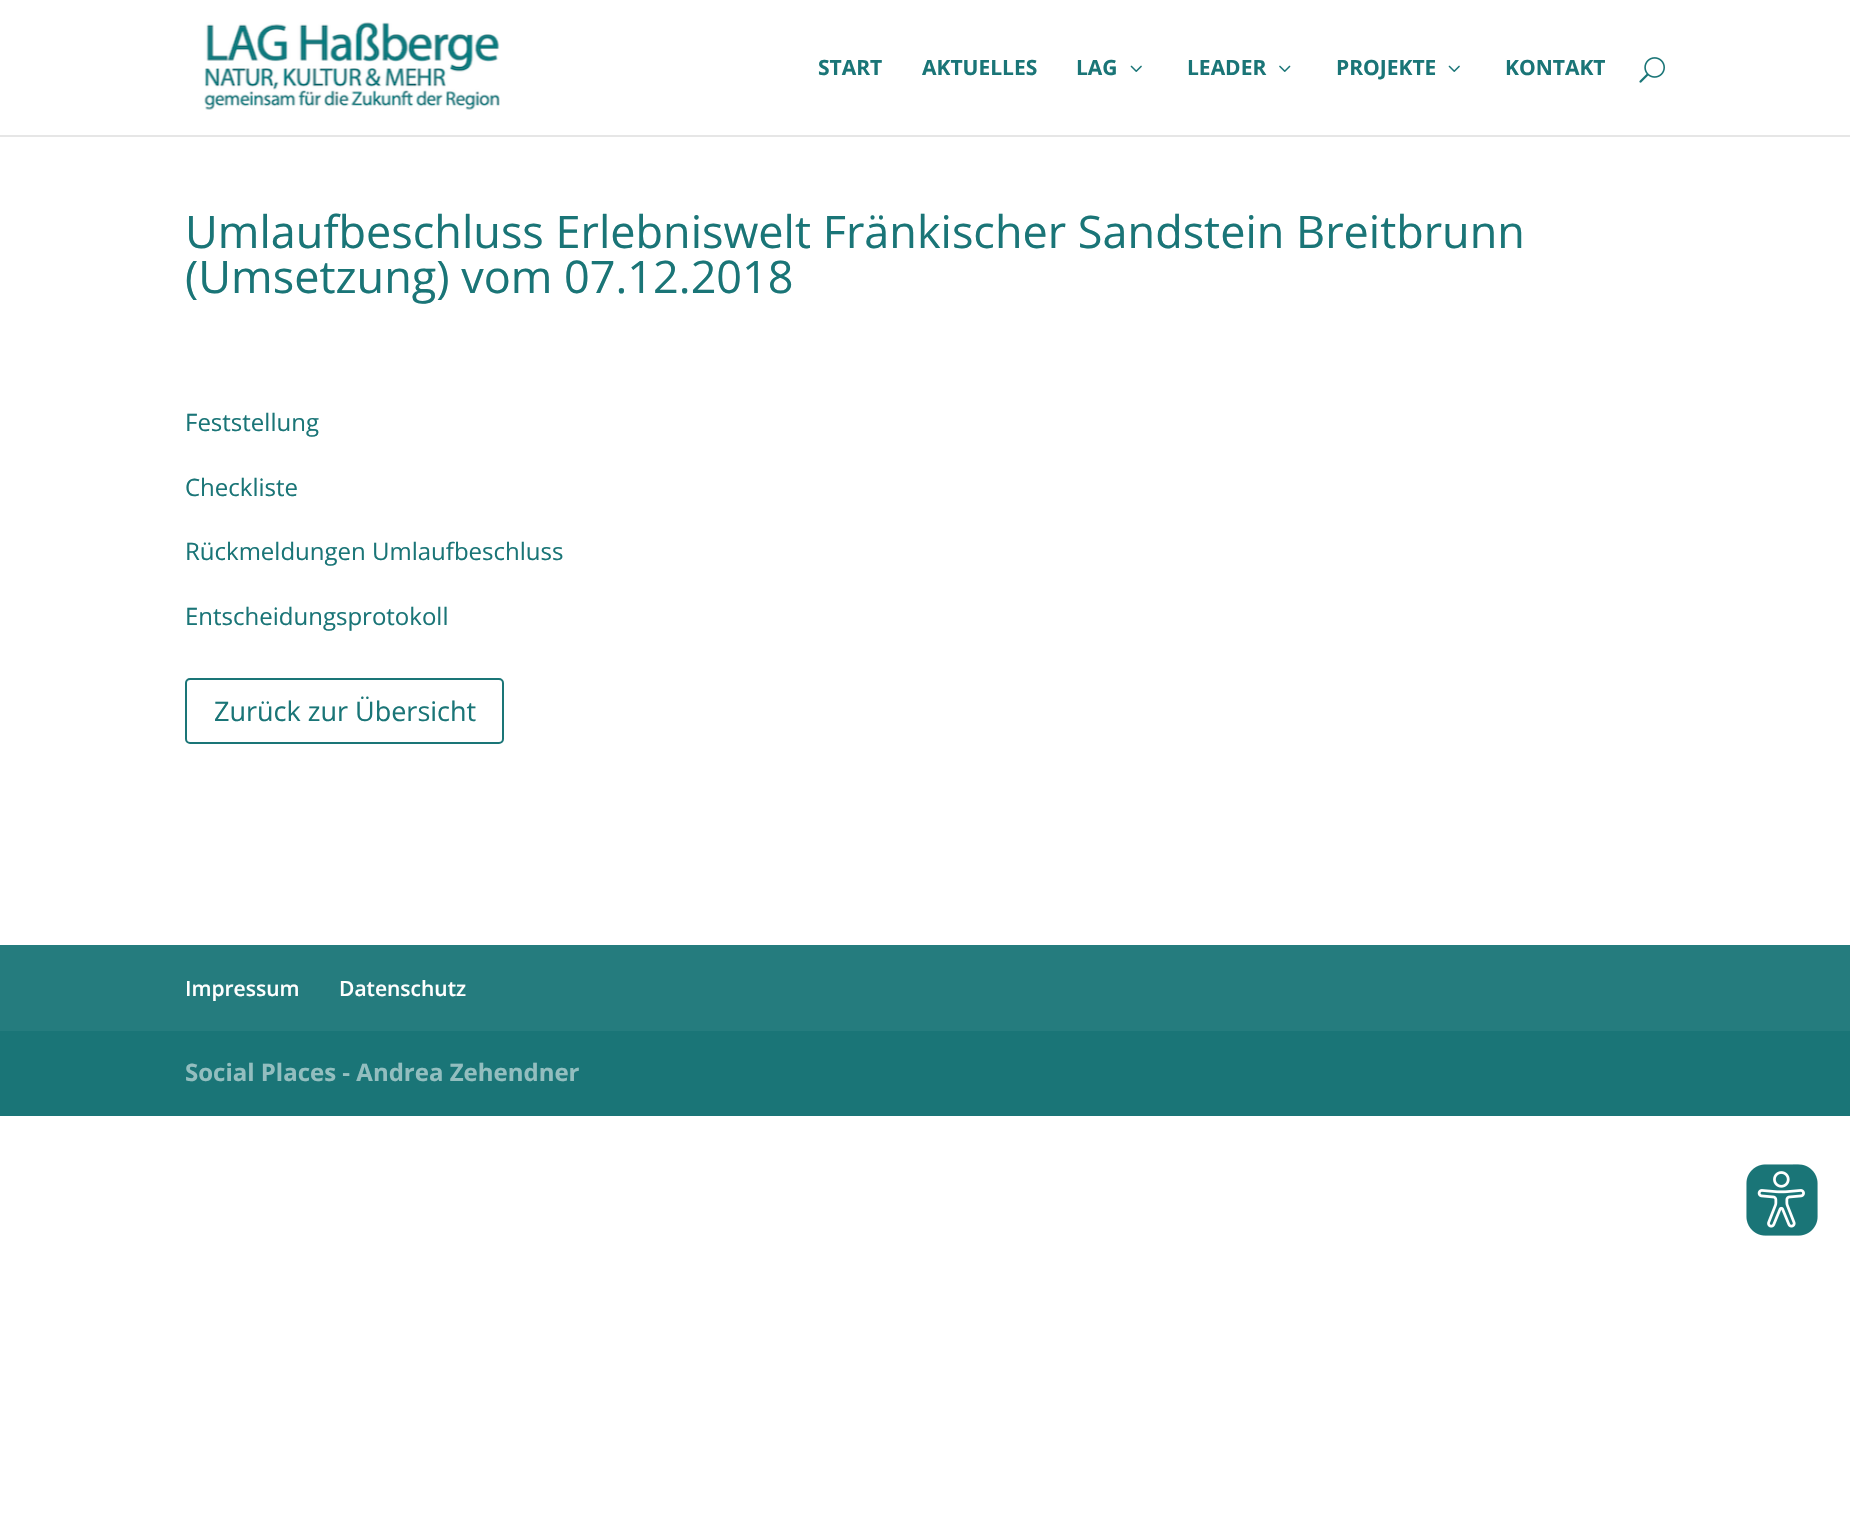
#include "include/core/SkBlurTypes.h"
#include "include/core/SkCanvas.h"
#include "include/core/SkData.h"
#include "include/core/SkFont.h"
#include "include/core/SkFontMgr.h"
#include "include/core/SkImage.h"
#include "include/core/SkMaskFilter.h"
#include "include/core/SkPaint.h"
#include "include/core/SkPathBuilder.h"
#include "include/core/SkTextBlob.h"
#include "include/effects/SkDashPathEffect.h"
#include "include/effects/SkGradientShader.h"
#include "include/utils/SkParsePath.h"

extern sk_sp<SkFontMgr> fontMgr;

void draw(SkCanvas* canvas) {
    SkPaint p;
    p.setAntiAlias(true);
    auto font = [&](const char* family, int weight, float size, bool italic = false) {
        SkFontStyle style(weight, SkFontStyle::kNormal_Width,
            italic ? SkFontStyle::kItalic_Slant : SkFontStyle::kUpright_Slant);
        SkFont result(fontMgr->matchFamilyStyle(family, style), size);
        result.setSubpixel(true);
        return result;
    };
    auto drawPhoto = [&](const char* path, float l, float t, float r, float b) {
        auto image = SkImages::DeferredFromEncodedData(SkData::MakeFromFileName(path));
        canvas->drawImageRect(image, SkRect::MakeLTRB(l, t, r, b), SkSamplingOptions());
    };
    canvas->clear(0xFFFFFFFF);
    p.setColor(0xFFE6E6E6);
    canvas->drawRect(SkRect::MakeLTRB(0, 135, 1850, 137), p);
    drawPhoto("media/1.png", 204, 22, 500, 110);
    auto font1 = font("Open Sans", 700, 21);
    p.setColor(0xFF1A7577);
    {
        const struct { const char* s; float x, y; } items[] = {
            {"START", 818, 75},
            {"AKTUELLES", 922, 75},
            {"LAG", 1076, 75},
        };
        for (auto [s, x, y] : items) {
            canvas->drawString(s, x, y, font1, p);
        }
    }
    drawPhoto("media/2.png", 1130, 65, 1142, 72);
    canvas->drawString("LEADER", 1187, 75, font1, p);
    drawPhoto("media/3.png", 1279, 65, 1291, 72);
    canvas->drawString("PROJEKTE", 1336, 75, font1, p);
    drawPhoto("media/2.png", 1448, 65, 1460, 72);
    canvas->drawString("KONTAKT", 1505, 75, font1, p);
    drawPhoto("media/4.png", 1639, 57, 1665, 83);
    auto font2 = font("Open Sans", 400, 45);
    canvas->drawString("Umlaufbeschluss Erlebniswelt Fränkischer Sandstein Breitbrunn", 185, 248, font2, p);
    canvas->drawString("(Umsetzung) vom 07.12.2018", 185, 293, font2, p);
    auto font3 = font("Open Sans", 400, 24);
    {
        const struct { const char* s; float x, y; } items[] = {
            {"Feststellung", 185, 431},
            {"Checkliste", 185, 496},
            {"Rückmeldungen Umlaufbeschluss", 185, 560},
            {"Entscheidungsprotokoll", 185, 625},
        };
        for (auto [s, x, y] : items) {
            canvas->drawString(s, x, y, font3, p);
        }
    }
    p.setStyle(SkPaint::kStroke_Style);
    p.setStrokeWidth(2);
    canvas->drawRoundRect(SkRect::MakeLTRB(186, 679, 503, 743), 4, 4, p);
    auto font4 = font("Open Sans", 400, 27);
    p.setStyle(SkPaint::kFill_Style);
    canvas->drawString("Zurück zur Übersicht", 214, 721, font4, p);
    canvas->drawRect(SkRect::MakeLTRB(0, 1031, 1850, 1116), p);
    p.setColor(0xFF257C7E);
    canvas->drawRect(SkRect::MakeLTRB(0, 945, 1850, 1031), p);
    auto font5 = font("Open Sans", 600, 21);
    p.setColor(0xFFFFFFFF);
    canvas->drawString("Impressum", 185, 996, font5, p);
    canvas->drawString("Datenschutz", 339, 996, font5, p);
    auto font6 = font("Open Sans", 700, 24);
    p.setColor(0xFF93BEBF);
    canvas->drawString("Social Places - Andrea Zehendner", 185, 1081, font6, p);
    drawPhoto("media/5.png", 1746, 1164, 1818, 1236);
}
